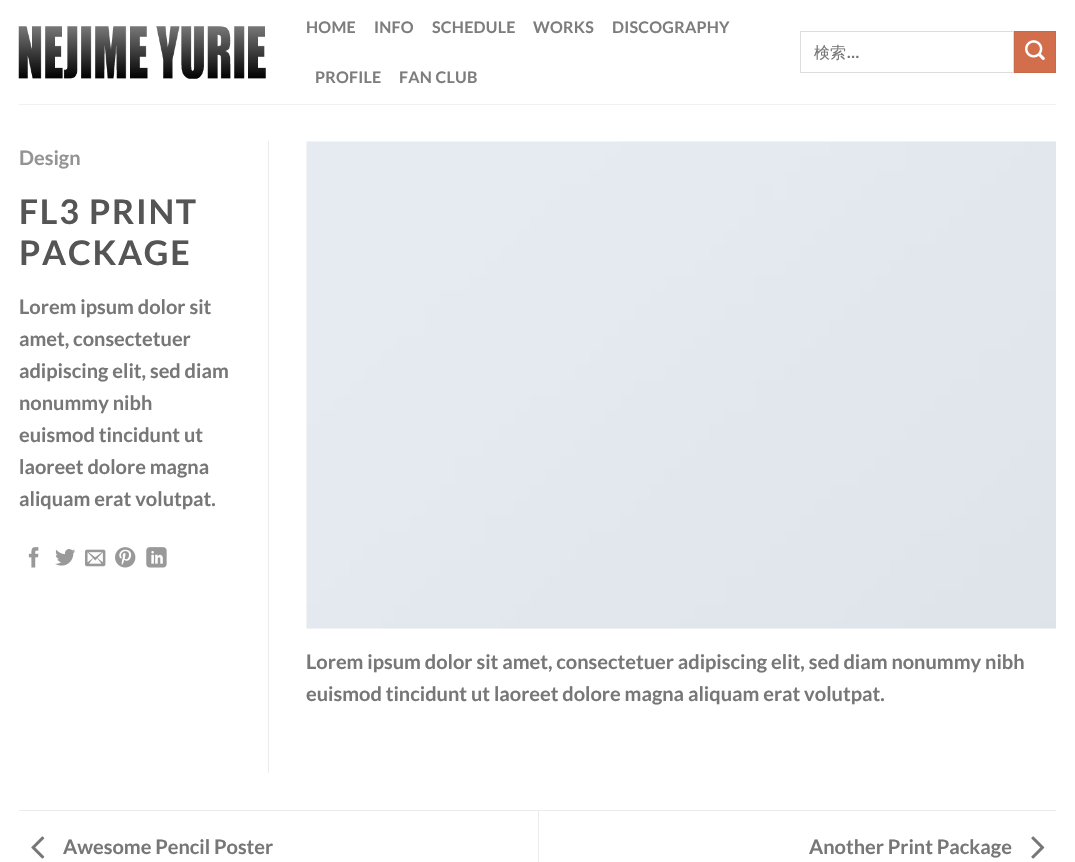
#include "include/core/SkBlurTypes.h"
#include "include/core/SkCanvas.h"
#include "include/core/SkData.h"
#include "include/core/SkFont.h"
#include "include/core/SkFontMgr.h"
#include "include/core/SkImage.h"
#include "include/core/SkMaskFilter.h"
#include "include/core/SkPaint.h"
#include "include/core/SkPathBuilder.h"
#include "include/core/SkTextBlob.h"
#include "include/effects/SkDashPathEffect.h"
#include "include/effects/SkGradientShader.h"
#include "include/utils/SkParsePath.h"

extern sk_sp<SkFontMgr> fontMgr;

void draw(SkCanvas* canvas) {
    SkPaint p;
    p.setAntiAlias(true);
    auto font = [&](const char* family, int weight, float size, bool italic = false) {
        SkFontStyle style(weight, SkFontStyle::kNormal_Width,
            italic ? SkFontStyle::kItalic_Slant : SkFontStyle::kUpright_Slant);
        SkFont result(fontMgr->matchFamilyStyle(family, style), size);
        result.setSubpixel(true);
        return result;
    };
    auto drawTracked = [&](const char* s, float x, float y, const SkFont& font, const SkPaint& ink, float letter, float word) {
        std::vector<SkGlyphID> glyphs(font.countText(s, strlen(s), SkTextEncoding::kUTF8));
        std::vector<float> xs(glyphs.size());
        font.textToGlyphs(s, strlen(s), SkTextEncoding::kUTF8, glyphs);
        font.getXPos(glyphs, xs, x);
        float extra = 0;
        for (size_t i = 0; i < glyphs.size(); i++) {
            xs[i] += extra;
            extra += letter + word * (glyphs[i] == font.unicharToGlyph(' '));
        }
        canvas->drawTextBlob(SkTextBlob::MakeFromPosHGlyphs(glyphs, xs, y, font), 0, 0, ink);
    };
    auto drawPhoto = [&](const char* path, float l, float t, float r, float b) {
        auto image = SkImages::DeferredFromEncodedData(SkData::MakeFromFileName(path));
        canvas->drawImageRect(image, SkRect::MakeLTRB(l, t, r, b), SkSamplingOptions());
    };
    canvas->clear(0xFFFFFFFF);
    drawPhoto("media/1.png", 18, 26, 266, 79);
    auto font1 = font("Lato", 700, 16);
    p.setColor(0xFF7D7D7D);
    {
        const struct { const char* s; float x, y; } items[] = {
            {"HOME", 306, 33},
            {"INFO", 374, 33},
            {"SCHEDULE", 432, 33},
            {"WORKS", 533, 33},
            {"DISCOGRAPHY", 612, 33},
            {"PROFILE", 315, 83},
            {"FAN CLUB", 399, 83},
        };
        for (auto [s, x, y] : items) {
            drawTracked(s, x, y, font1, p, 0.25f, 0);
        }
    }
    p.setStyle(SkPaint::kStroke_Style);
    p.setStrokeWidth(1);
    p.setColor(0xFFDDDDDD);
    canvas->drawRect(SkRect::MakeLTRB(800.5f, 31.5f, 1013.5f, 72.5f), p);
    auto font2 = font("WenQuanYi Zen Hei", 500, 16);
    p.setStyle(SkPaint::kFill_Style);
    p.setColor(0xFF777777);
    canvas->drawString("検索", 814, 58, font2, p);
    canvas->drawString("…", 847, 58, font1, p);
    p.setColor(0xFFD26E4B);
    canvas->drawRect(SkRect::MakeLTRB(1014.5f, 31.5f, 1055.5f, 72.5f), p);
    p.setStyle(SkPaint::kStroke_Style);
    p.setColor(0xFFC86947);
    canvas->drawRect(SkRect::MakeLTRB(1014.5f, 31.5f, 1055.5f, 72.5f), p);
    drawPhoto("media/2.png", 1025, 40, 1045, 60);
    p.setStyle(SkPaint::kFill_Style);
    p.setColor(0xFFF1F1F1);
    canvas->drawRect(SkRect::MakeLTRB(19, 104, 1056, 105), p);
    p.setColor(0xFFECECEC);
    canvas->drawRect(SkRect::MakeLTRB(268, 141, 269, 773), p);
    auto font3 = font("Lato", 700, 20);
    p.setColor(0xFF949494);
    canvas->drawString("Design", 19, 165, font3, p);
    auto font4 = font("Lato", 700, 34);
    p.setColor(0xFF555555);
    drawTracked("FL3 PRINT", 19, 224, font4, p, 1.75f, 0);
    drawTracked("PACKAGE", 19, 265, font4, p, 1.75f, 0);
    p.setColor(0xFF777777);
    {
        const struct { const char* s; float x, y; } items[] = {
            {"Lorem ipsum dolor sit", 19, 314},
            {"amet, consectetuer", 19, 346},
            {"adipiscing elit, sed diam", 19, 378},
            {"nonummy nibh", 19, 410},
            {"euismod tincidunt ut", 19, 442},
            {"laoreet dolore magna", 19, 474},
            {"aliquam erat volutpat.", 19, 506},
        };
        for (auto [s, x, y] : items) {
            canvas->drawString(s, x, y, font3, p);
        }
    }
    drawPhoto("media/3.png", 28, 547, 39, 568);
    drawPhoto("media/4.png", 55, 549, 76, 566);
    drawPhoto("media/5.png", 85, 549, 106, 567);
    drawPhoto("media/6.png", 115, 547, 136, 568);
    drawPhoto("media/7.png", 146, 547, 167, 568);
    drawPhoto("media/8.png", 306, 141, 1056, 629);
    canvas->drawString("Lorem ipsum dolor sit amet, consectetuer adipiscing elit, sed diam nonummy nibh", 306, 669, font3, p);
    canvas->drawString("euismod tincidunt ut laoreet dolore magna aliquam erat volutpat.", 306, 701, font3, p);
    p.setColor(0xFFECECEC);
    canvas->drawRect(SkRect::MakeLTRB(19, 810, 1056, 811), p);
    drawPhoto("media/9.png", 31, 836, 45, 859);
    p.setColor(0xFF777777);
    canvas->drawString("Awesome Pencil Poster", 63, 854, font3, p);
    p.setColor(0xFFECECEC);
    canvas->drawRect(SkRect::MakeLTRB(538, 811, 539, 862), p);
    p.setColor(0xFF777777);
    canvas->drawString("Another Print Package", 809, 854, font3, p);
    drawPhoto("media/10.png", 1031, 836, 1045, 859);
}
